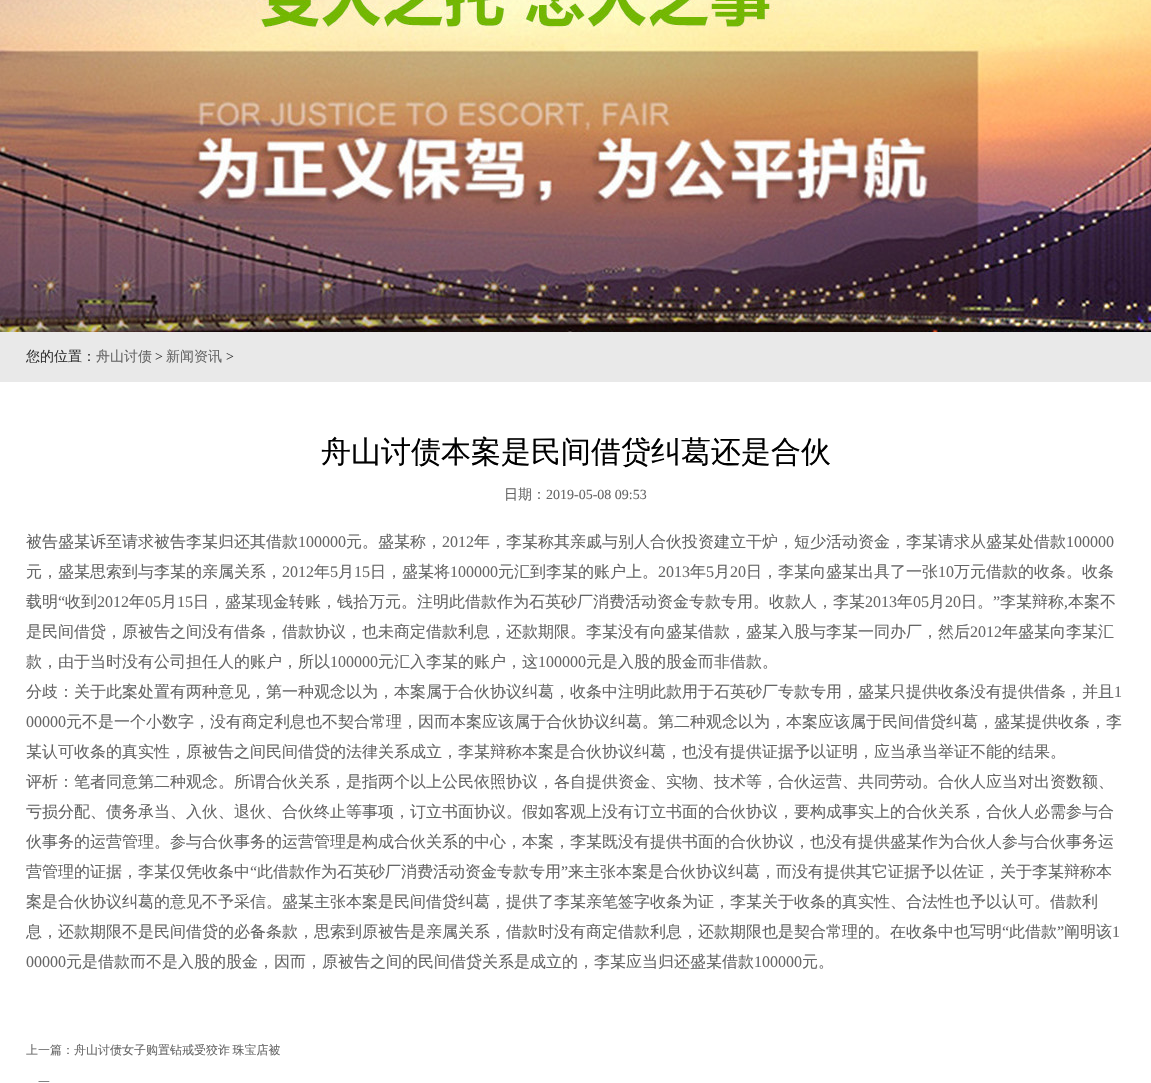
#include "include/core/SkBlurTypes.h"
#include "include/core/SkCanvas.h"
#include "include/core/SkData.h"
#include "include/core/SkFont.h"
#include "include/core/SkFontMgr.h"
#include "include/core/SkImage.h"
#include "include/core/SkMaskFilter.h"
#include "include/core/SkPaint.h"
#include "include/core/SkPathBuilder.h"
#include "include/core/SkTextBlob.h"
#include "include/effects/SkDashPathEffect.h"
#include "include/effects/SkGradientShader.h"
#include "include/utils/SkParsePath.h"

extern sk_sp<SkFontMgr> fontMgr;

void draw(SkCanvas* canvas) {
    SkPaint p;
    p.setAntiAlias(true);
    auto font = [&](const char* family, int weight, float size, bool italic = false) {
        SkFontStyle style(weight, SkFontStyle::kNormal_Width,
            italic ? SkFontStyle::kItalic_Slant : SkFontStyle::kUpright_Slant);
        SkFont result(fontMgr->matchFamilyStyle(family, style), size);
        result.setSubpixel(true);
        return result;
    };
    auto drawTracked = [&](const char* s, float x, float y, const SkFont& font, const SkPaint& ink, float letter, float word) {
        std::vector<SkGlyphID> glyphs(font.countText(s, strlen(s), SkTextEncoding::kUTF8));
        std::vector<float> xs(glyphs.size());
        font.textToGlyphs(s, strlen(s), SkTextEncoding::kUTF8, glyphs);
        font.getXPos(glyphs, xs, x);
        float extra = 0;
        for (size_t i = 0; i < glyphs.size(); i++) {
            xs[i] += extra;
            extra += letter + word * (glyphs[i] == font.unicharToGlyph(' '));
        }
        canvas->drawTextBlob(SkTextBlob::MakeFromPosHGlyphs(glyphs, xs, y, font), 0, 0, ink);
    };
    auto drawPhoto = [&](const char* path, float l, float t, float r, float b) {
        auto image = SkImages::DeferredFromEncodedData(SkData::MakeFromFileName(path));
        canvas->drawImageRect(image, SkRect::MakeLTRB(l, t, r, b), SkSamplingOptions());
    };
    canvas->clear(0xFFFFFFFF);
    drawPhoto("media/1.png", 0, 0, 1151, 332);
    p.setColor(0xFFE9E9E9);
    canvas->drawRect(SkRect::MakeLTRB(0, 332, 1151, 382), p);
    auto font1 = font("WenQuanYi Zen Hei", 500, 14);
    p.setColor(0xFF333333);
    canvas->drawString("您的位置：", 26, 361, font1, p);
    p.setColor(0xFF666666);
    canvas->drawString("舟山讨债", 96, 361, font1, p);
    auto font2 = font("Liberation Serif", 400, 14);
    p.setColor(0xFF333333);
    canvas->drawString(">", 155, 361, font2, p);
    p.setColor(0xFF666666);
    canvas->drawString("新闻资讯", 166, 361, font1, p);
    p.setColor(0xFF333333);
    canvas->drawString(">", 226, 361, font2, p);
    auto font3 = font("WenQuanYi Zen Hei", 500, 30);
    p.setColor(0xFF000000);
    canvas->drawString("舟山讨债本案是民间借贷纠葛还是合伙", 321, 462, font3, p);
    p.setColor(0xFF666666);
    canvas->drawString("日期：", 504, 499, font1, p);
    canvas->drawString("2019-05-08 09:53", 546, 499, font2, p);
    auto font4 = font("WenQuanYi Zen Hei", 500, 16);
    canvas->drawString("被告盛某诉至请求被告李某归还其借款", 26, 547, font4, p);
    auto font5 = font("Liberation Serif", 400, 16);
    canvas->drawString("100000", 298, 547, font5, p);
    canvas->drawString("元。盛某称，", 346, 547, font4, p);
    canvas->drawString("2012", 442, 547, font5, p);
    canvas->drawString("年，李某称其亲戚与别人合伙投资建立干炉，短少活动资金，李某请求从盛某处借款", 474, 547, font4, p);
    canvas->drawString("100000", 1066, 547, font5, p);
    canvas->drawString("元，盛某思索到与李某的亲属关系，", 26, 577, font4, p);
    canvas->drawString("2012", 282, 577, font5, p);
    canvas->drawString("年", 314, 577, font4, p);
    canvas->drawString("5", 330, 577, font5, p);
    canvas->drawString("月", 338, 577, font4, p);
    canvas->drawString("15", 354, 577, font5, p);
    canvas->drawString("日，盛某将", 370, 577, font4, p);
    canvas->drawString("100000", 450, 577, font5, p);
    canvas->drawString("元汇到李某的账户上。", 498, 577, font4, p);
    canvas->drawString("2013", 658, 577, font5, p);
    canvas->drawString("年", 690, 577, font4, p);
    canvas->drawString("5", 706, 577, font5, p);
    canvas->drawString("月", 714, 577, font4, p);
    canvas->drawString("20", 730, 577, font5, p);
    canvas->drawString("日，李某向盛某出具了一张", 746, 577, font4, p);
    canvas->drawString("10", 938, 577, font5, p);
    canvas->drawString("万元借款的收条。收条", 954, 577, font4, p);
    canvas->drawString("载明", 26, 607, font4, p);
    canvas->drawString("“", 58, 607, font5, p);
    canvas->drawString("收到", 65, 607, font4, p);
    canvas->drawString("2012", 97, 607, font5, p);
    canvas->drawString("年", 129, 607, font4, p);
    canvas->drawString("05", 145, 607, font5, p);
    canvas->drawString("月", 161, 607, font4, p);
    canvas->drawString("15", 177, 607, font5, p);
    canvas->drawString("日，盛某现金转账，钱拾万元。注明此借款作为石英砂厂消费活动资金专款专用。收款人，李某", 193, 607, font4, p);
    canvas->drawString("2013", 865, 607, font5, p);
    canvas->drawString("年", 897, 607, font4, p);
    canvas->drawString("05", 913, 607, font5, p);
    canvas->drawString("月", 929, 607, font4, p);
    canvas->drawString("20", 945, 607, font5, p);
    canvas->drawString("日。", 961, 607, font4, p);
    canvas->drawString("”", 993, 607, font5, p);
    canvas->drawString("李某辩称", 1000, 607, font4, p);
    canvas->drawString("本案不", 1068, 607, font4, p);
    canvas->drawString(",", 1064, 607, font5, p);
    canvas->drawString("是民间借贷，原被告之间没有借条，借款协议，也未商定借款利息，还款期限。李某没有向盛某借款，盛某入股与李某一同办厂，然后", 26, 637, font4, p);
    canvas->drawString("2012", 970, 637, font5, p);
    canvas->drawString("年盛某向李某汇", 1002, 637, font4, p);
    canvas->drawString("款，由于当时没有公司担任人的账户，所以", 26, 667, font4, p);
    canvas->drawString("100000", 330, 667, font5, p);
    canvas->drawString("元汇入李某的账户，这", 378, 667, font4, p);
    canvas->drawString("100000", 538, 667, font5, p);
    canvas->drawString("元是入股的股金而非借款。", 586, 667, font4, p);
    canvas->drawString("分歧：关于此案处置有两种意见，第一种观念以为，本案属于合伙协议纠葛，收条中注明此款用于石英砂厂专款专用，盛某只提供收条没有提供借条，并且", 26, 697, font4, p);
    canvas->drawString("1", 1114, 697, font5, p);
    canvas->drawString("00000", 26, 727, font5, p);
    {
        const struct { const char* s; float x, y; } items[] = {
            {"元不是一个小数字，没有商定利息也不契合常理，因而本案应该属于合伙协议纠葛。第二种观念以为，本案应该属于民间借贷纠葛，盛某提供收条，李", 66, 727},
            {"某认可收条的真实性，原被告之间民间借贷的法律关系成立，李某辩称本案是合伙协议纠葛，也没有提供证据予以证明，应当承当举证不能的结果。", 26, 757},
            {"评析：笔者同意第二种观念。所谓合伙关系，是指两个以上公民依照协议，各自提供资金、实物、技术等，合伙运营、共同劳动。合伙人应当对出资数额、", 26, 787},
            {"亏损分配、债务承当、入伙、退伙、合伙终止等事项，订立书面协议。假如客观上没有订立书面的合伙协议，要构成事实上的合伙关系，合伙人必需参与合", 26, 817},
            {"伙事务的运营管理。参与合伙事务的运营管理是构成合伙关系的中心，本案，李某既没有提供书面的合伙协议，也没有提供盛某作为合伙人参与合伙事务运", 26, 847},
            {"营管理的证据，李某仅凭收条中", 26, 877},
        };
        for (auto [s, x, y] : items) {
            canvas->drawString(s, x, y, font4, p);
        }
    }
    canvas->drawString("“", 250, 877, font5, p);
    canvas->drawString("此借款作为石英砂厂消费活动资金专款专用", 257, 877, font4, p);
    canvas->drawString("”", 561, 877, font5, p);
    {
        const struct { const char* s; float x, y; } items[] = {
            {"来主张本案是合伙协议纠葛，而没有提供其它证据予以佐证，关于李某辩称本", 568, 877},
            {"案是合伙协议纠葛的意见不予采信。盛某主张本案是民间借贷纠葛，提供了李某亲笔签字收条为证，李某关于收条的真实性、合法性也予以认可。借款利", 26, 907},
            {"息，还款期限不是民间借贷的必备条款，思索到原被告是亲属关系，借款时没有商定借款利息，还款期限也是契合常理的。在收条中也写明", 26, 937},
        };
        for (auto [s, x, y] : items) {
            canvas->drawString(s, x, y, font4, p);
        }
    }
    canvas->drawString("“", 1002, 937, font5, p);
    canvas->drawString("此借款", 1009, 937, font4, p);
    canvas->drawString("”", 1057, 937, font5, p);
    canvas->drawString("阐明该", 1064, 937, font4, p);
    canvas->drawString("1", 1112, 937, font5, p);
    canvas->drawString("00000", 26, 967, font5, p);
    canvas->drawString("元是借款而不是入股的股金，因而，原被告之间的民间借贷关系是成立的，李某应当归还盛某借款", 66, 967, font4, p);
    canvas->drawString("100000", 754, 967, font5, p);
    canvas->drawString("元。", 802, 967, font4, p);
    auto font6 = font("WenQuanYi Zen Hei", 500, 12);
    canvas->drawString("上一篇：", 26, 1054, font6, p);
    drawTracked("舟山讨债女子购置钻戒受狡诈 珠宝店被", 74, 1054, font6, p, 0, -1);
    canvas->drawString("一", 38, 1086, font6, p);
}
